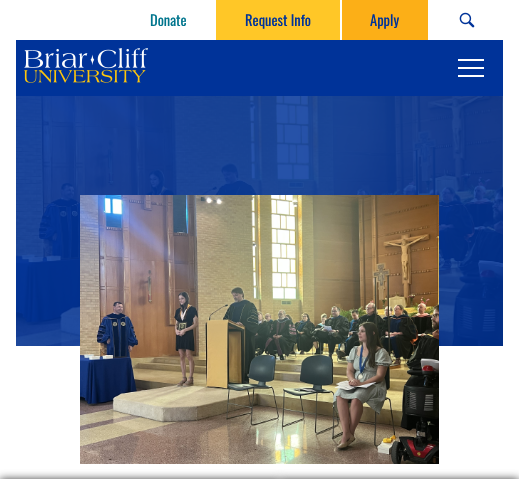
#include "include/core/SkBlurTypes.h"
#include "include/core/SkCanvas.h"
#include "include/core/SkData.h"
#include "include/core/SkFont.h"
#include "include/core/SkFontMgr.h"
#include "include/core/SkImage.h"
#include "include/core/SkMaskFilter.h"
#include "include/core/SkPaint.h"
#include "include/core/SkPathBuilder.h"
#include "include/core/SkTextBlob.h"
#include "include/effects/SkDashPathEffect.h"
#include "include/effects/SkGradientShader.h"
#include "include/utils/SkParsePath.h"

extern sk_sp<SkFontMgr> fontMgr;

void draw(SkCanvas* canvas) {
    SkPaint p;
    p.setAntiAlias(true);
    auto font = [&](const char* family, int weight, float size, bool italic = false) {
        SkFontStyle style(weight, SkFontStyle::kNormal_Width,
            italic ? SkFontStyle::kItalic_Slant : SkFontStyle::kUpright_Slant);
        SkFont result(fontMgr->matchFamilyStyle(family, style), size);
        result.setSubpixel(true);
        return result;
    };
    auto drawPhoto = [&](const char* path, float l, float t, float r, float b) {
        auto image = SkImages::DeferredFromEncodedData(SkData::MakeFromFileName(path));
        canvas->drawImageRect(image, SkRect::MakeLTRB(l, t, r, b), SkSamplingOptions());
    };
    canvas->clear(0xFFFFFFFF);
    auto font1 = font("Oswald", 400, 14.5f);
    p.setColor(0xFF00758D);
    canvas->drawString("Donate", 150, 26, font1, p);
    p.setColor(0xFFFFC727);
    canvas->drawRect(SkRect::MakeLTRB(216, 0, 340, 40), p);
    p.setColor(0xFF003399);
    canvas->drawString("Request Info", 245, 26, font1, p);
    p.setColor(0xFFFCAF17);
    canvas->drawRect(SkRect::MakeLTRB(342, 0, 428, 40), p);
    p.setColor(0xFF003399);
    canvas->drawString("Apply", 370, 26, font1, p);
    drawPhoto("media/1.png", 459, 12, 475, 28);
    canvas->drawRect(SkRect::MakeLTRB(16, 40, 503, 96), p);
    drawPhoto("media/2.png", 24, 48, 148, 83);
    {
        const struct { float l, t, r, b; SkColor color; } items[] = {
            {458, 59, 484, 61, 0xFFFFFFFF},
            {458, 67, 484, 69, 0xFFFFFFFF},
            {458, 75, 484, 77, 0xFFFFFFFF},
        };
        for (auto [l, t, r, b, color] : items) {
            p.setColor(color);
            canvas->drawRect(SkRect::MakeLTRB(l, t, r, b), p);
        }
    }
    drawPhoto("media/3.png", 16, 96, 503, 346);
    drawPhoto("media/4.png", 80, 195, 439, 464);
    p.setColor(0xBF000000);
    p.setMaskFilter(SkMaskFilter::MakeBlur(kNormal_SkBlurStyle, 4));
    canvas->drawRect(SkRect::MakeLTRB(0, 479, 280, 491), p);
    p.setMaskFilter(nullptr);
    p.setMaskFilter(SkMaskFilter::MakeBlur(kNormal_SkBlurStyle, 4));
    canvas->drawRect(SkRect::MakeLTRB(280, 479, 519, 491), p);
    p.setMaskFilter(nullptr);
}
